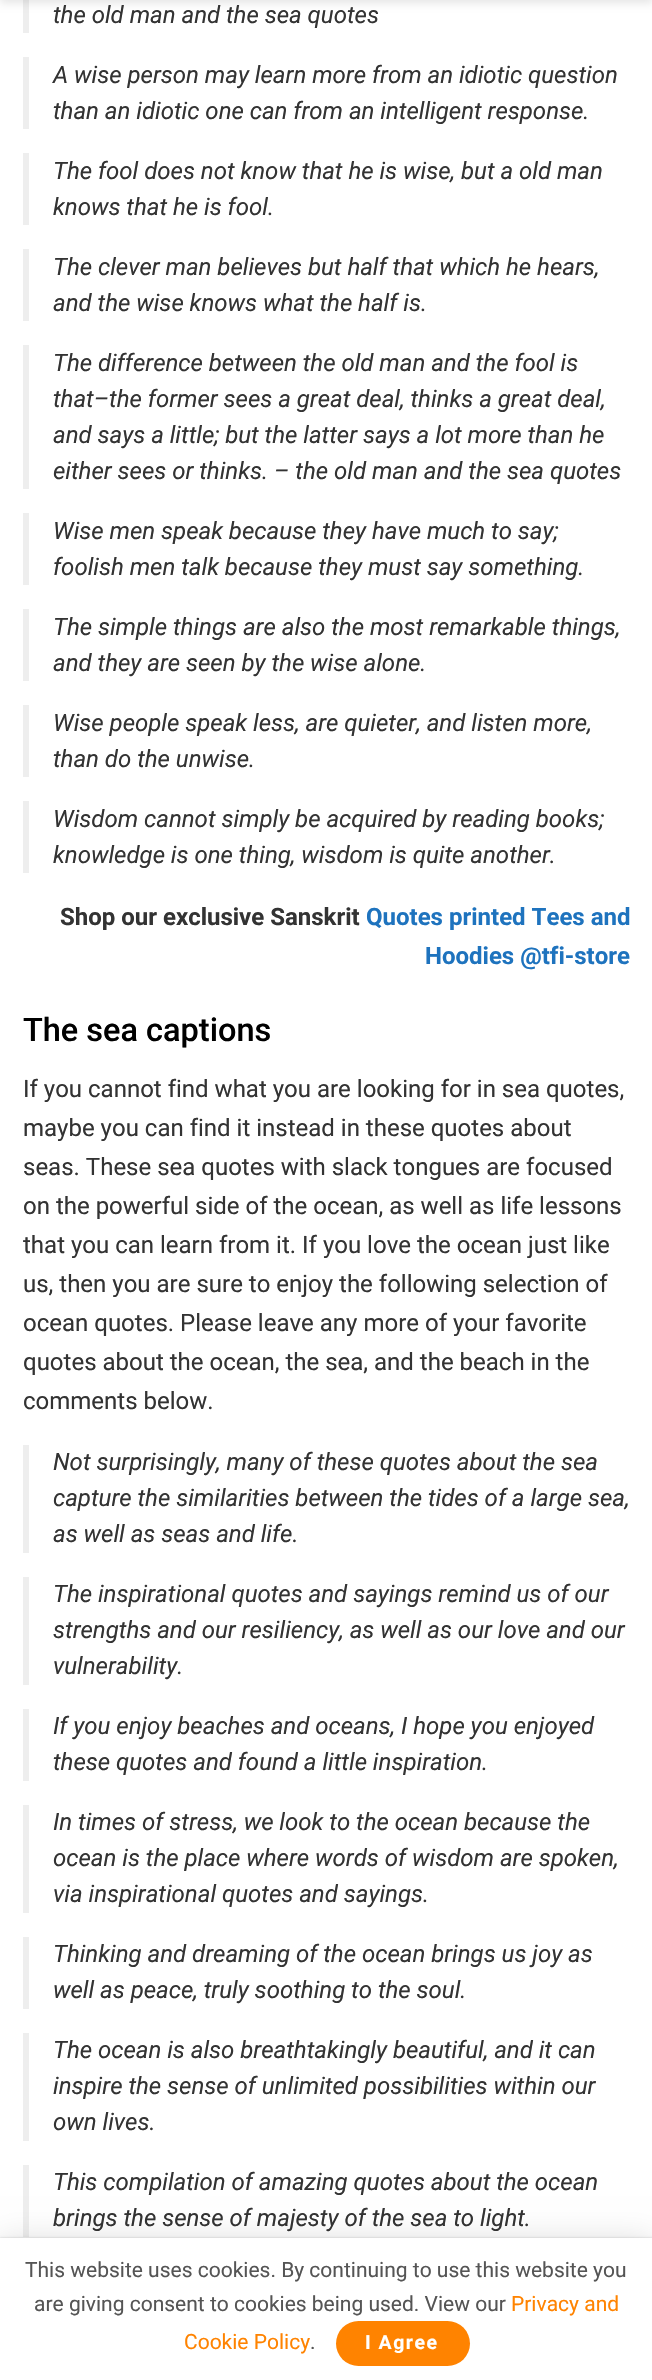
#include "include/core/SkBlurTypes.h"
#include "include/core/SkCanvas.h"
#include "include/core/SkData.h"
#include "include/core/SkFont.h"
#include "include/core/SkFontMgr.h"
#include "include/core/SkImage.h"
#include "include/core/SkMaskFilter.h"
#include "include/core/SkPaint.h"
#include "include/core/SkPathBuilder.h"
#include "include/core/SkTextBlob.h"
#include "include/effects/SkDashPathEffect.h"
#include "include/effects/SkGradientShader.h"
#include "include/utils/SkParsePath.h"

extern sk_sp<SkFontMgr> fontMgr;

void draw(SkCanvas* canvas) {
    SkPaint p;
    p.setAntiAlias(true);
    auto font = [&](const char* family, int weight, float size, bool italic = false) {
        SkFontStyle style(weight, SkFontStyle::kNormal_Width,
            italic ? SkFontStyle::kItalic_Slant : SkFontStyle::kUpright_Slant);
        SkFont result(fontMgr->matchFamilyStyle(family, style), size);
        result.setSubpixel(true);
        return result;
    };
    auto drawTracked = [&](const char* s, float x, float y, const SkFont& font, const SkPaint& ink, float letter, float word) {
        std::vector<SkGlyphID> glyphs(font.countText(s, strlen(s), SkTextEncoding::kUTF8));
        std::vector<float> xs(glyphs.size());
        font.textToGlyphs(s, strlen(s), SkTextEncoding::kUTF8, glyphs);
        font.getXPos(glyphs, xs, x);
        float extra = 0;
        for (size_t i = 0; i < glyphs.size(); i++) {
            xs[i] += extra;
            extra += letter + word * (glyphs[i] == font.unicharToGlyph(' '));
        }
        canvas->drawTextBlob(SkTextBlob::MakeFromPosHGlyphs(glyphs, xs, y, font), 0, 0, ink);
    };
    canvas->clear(0xFFFFFFFF);
    p.setColor(0xFFEEEEEE);
    canvas->drawRect(SkRect::MakeLTRB(23, 0, 29, 33), p);
    p.setColor(0x1A000000);
    p.setMaskFilter(SkMaskFilter::MakeBlur(kNormal_SkBlurStyle, 4.5f));
    canvas->drawRect(SkRect::MakeLTRB(0, -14, 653, 3), p);
    p.setMaskFilter(nullptr);
    auto font1 = font("Roboto", 400, 24, true);
    p.setColor(0xFF333333);
    canvas->drawString("the old man and the sea quotes", 53, 23, font1, p);
    p.setColor(0xFFEEEEEE);
    canvas->drawRect(SkRect::MakeLTRB(23, 57, 29, 129), p);
    p.setColor(0xFF333333);
    canvas->drawString("A wise person may learn more from an idiotic question", 53, 83, font1, p);
    canvas->drawString("than an idiotic one can from an intelligent response.", 53, 119, font1, p);
    p.setColor(0xFFEEEEEE);
    canvas->drawRect(SkRect::MakeLTRB(23, 153, 29, 225), p);
    p.setColor(0xFF333333);
    canvas->drawString("The fool does not know that he is wise, but a old man", 53, 179, font1, p);
    canvas->drawString("knows that he is fool.", 53, 215, font1, p);
    p.setColor(0xFFEEEEEE);
    canvas->drawRect(SkRect::MakeLTRB(23, 249, 29, 321), p);
    p.setColor(0xFF333333);
    canvas->drawString("The clever man believes but half that which he hears,", 53, 275, font1, p);
    canvas->drawString("and the wise knows what the half is.", 53, 311, font1, p);
    p.setColor(0xFFEEEEEE);
    canvas->drawRect(SkRect::MakeLTRB(23, 345, 29, 489), p);
    p.setColor(0xFF333333);
    {
        const struct { const char* s; float x, y; } items[] = {
            {"The difference between the old man and the fool is", 53, 371},
            {"that–the former sees a great deal, thinks a great deal,", 53, 407},
            {"and says a little; but the latter says a lot more than he", 53, 443},
            {"either sees or thinks. – the old man and the sea quotes", 53, 479},
        };
        for (auto [s, x, y] : items) {
            canvas->drawString(s, x, y, font1, p);
        }
    }
    p.setColor(0xFFEEEEEE);
    canvas->drawRect(SkRect::MakeLTRB(23, 513, 29, 585), p);
    p.setColor(0xFF333333);
    canvas->drawString("Wise men speak because they have much to say;", 53, 539, font1, p);
    canvas->drawString("foolish men talk because they must say something.", 53, 575, font1, p);
    p.setColor(0xFFEEEEEE);
    canvas->drawRect(SkRect::MakeLTRB(23, 609, 29, 681), p);
    p.setColor(0xFF333333);
    canvas->drawString("The simple things are also the most remarkable things,", 53, 635, font1, p);
    canvas->drawString("and they are seen by the wise alone.", 53, 671, font1, p);
    p.setColor(0xFFEEEEEE);
    canvas->drawRect(SkRect::MakeLTRB(23, 705, 29, 777), p);
    p.setColor(0xFF333333);
    canvas->drawString("Wise people speak less, are quieter, and listen more,", 53, 731, font1, p);
    canvas->drawString("than do the unwise.", 53, 767, font1, p);
    p.setColor(0xFFEEEEEE);
    canvas->drawRect(SkRect::MakeLTRB(23, 801, 29, 873), p);
    p.setColor(0xFF333333);
    canvas->drawString("Wisdom cannot simply be acquired by reading books;", 53, 827, font1, p);
    canvas->drawString("knowledge is one thing, wisdom is quite another.", 53, 863, font1, p);
    auto font2 = font("Roboto", 700, 24);
    canvas->drawString("Shop our exclusive Sanskrit", 60, 925, font2, p);
    p.setColor(0xFF1E73BE);
    canvas->drawString("Quotes printed Tees and", 366, 925, font2, p);
    canvas->drawString("Hoodies @tfi-store", 425, 964, font2, p);
    auto font3 = font("Roboto", 500, 32.5f);
    p.setColor(0xFF000000);
    canvas->drawString("The sea captions", 23, 1041, font3, p);
    auto font4 = font("Roboto", 400, 24);
    p.setColor(0xFF333333);
    {
        const struct { const char* s; float x, y; } items[] = {
            {"If you cannot find what you are looking for in sea quotes,", 23, 1097},
            {"maybe you can find it instead in these quotes about", 23, 1136},
            {"seas. These sea quotes with slack tongues are focused", 23, 1175},
            {"on the powerful side of the ocean, as well as life lessons", 23, 1214},
            {"that you can learn from it. If you love the ocean just like", 23, 1253},
            {"us, then you are sure to enjoy the following selection of", 23, 1292},
            {"ocean quotes. Please leave any more of your favorite", 23, 1331},
            {"quotes about the ocean, the sea, and the beach in the", 23, 1370},
            {"comments below.", 23, 1409},
        };
        for (auto [s, x, y] : items) {
            canvas->drawString(s, x, y, font4, p);
        }
    }
    p.setColor(0xFFEEEEEE);
    canvas->drawRect(SkRect::MakeLTRB(23, 1445, 29, 1553), p);
    p.setColor(0xFF333333);
    {
        const struct { const char* s; float x, y; } items[] = {
            {"Not surprisingly, many of these quotes about the sea", 53, 1470},
            {"capture the similarities between the tides of a large sea,", 53, 1506},
            {"as well as seas and life.", 53, 1542},
        };
        for (auto [s, x, y] : items) {
            canvas->drawString(s, x, y, font1, p);
        }
    }
    p.setColor(0xFFEEEEEE);
    canvas->drawRect(SkRect::MakeLTRB(23, 1577, 29, 1685), p);
    p.setColor(0xFF333333);
    {
        const struct { const char* s; float x, y; } items[] = {
            {"The inspirational quotes and sayings remind us of our", 53, 1602},
            {"strengths and our resiliency, as well as our love and our", 53, 1638},
            {"vulnerability.", 53, 1674},
        };
        for (auto [s, x, y] : items) {
            canvas->drawString(s, x, y, font1, p);
        }
    }
    p.setColor(0xFFEEEEEE);
    canvas->drawRect(SkRect::MakeLTRB(23, 1709, 29, 1781), p);
    p.setColor(0xFF333333);
    canvas->drawString("If you enjoy beaches and oceans, I hope you enjoyed", 53, 1734, font1, p);
    canvas->drawString("these quotes and found a little inspiration.", 53, 1770, font1, p);
    p.setColor(0xFFEEEEEE);
    canvas->drawRect(SkRect::MakeLTRB(23, 1805, 29, 1913), p);
    p.setColor(0xFF333333);
    {
        const struct { const char* s; float x, y; } items[] = {
            {"In times of stress, we look to the ocean because the", 53, 1830},
            {"ocean is the place where words of wisdom are spoken,", 53, 1866},
            {"via inspirational quotes and sayings.", 53, 1902},
        };
        for (auto [s, x, y] : items) {
            canvas->drawString(s, x, y, font1, p);
        }
    }
    p.setColor(0xFFEEEEEE);
    canvas->drawRect(SkRect::MakeLTRB(23, 1937, 29, 2009), p);
    p.setColor(0xFF333333);
    canvas->drawString("Thinking and dreaming of the ocean brings us joy as", 53, 1962, font1, p);
    canvas->drawString("well as peace, truly soothing to the soul.", 53, 1998, font1, p);
    p.setColor(0xFFEEEEEE);
    canvas->drawRect(SkRect::MakeLTRB(23, 2033, 29, 2141), p);
    p.setColor(0xFF333333);
    {
        const struct { const char* s; float x, y; } items[] = {
            {"The ocean is also breathtakingly beautiful, and it can", 53, 2058},
            {"inspire the sense of unlimited possibilities within our", 53, 2094},
            {"own lives.", 53, 2130},
        };
        for (auto [s, x, y] : items) {
            canvas->drawString(s, x, y, font1, p);
        }
    }
    p.setColor(0xFFEEEEEE);
    canvas->drawRect(SkRect::MakeLTRB(23, 2165, 29, 2237), p);
    p.setColor(0xFF333333);
    canvas->drawString("This compilation of amazing quotes about the ocean", 53, 2190, font1, p);
    canvas->drawString("brings the sense of majesty of the sea to light.", 53, 2226, font1, p);
    p.setColor(0x26000000);
    p.setMaskFilter(SkMaskFilter::MakeBlur(kNormal_SkBlurStyle, 15));
    canvas->drawRect(SkRect::MakeLTRB(0, 2241, 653, 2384), p);
    p.setMaskFilter(nullptr);
    p.setColor(0x33000000);
    p.setMaskFilter(SkMaskFilter::MakeBlur(kNormal_SkBlurStyle, 1));
    canvas->drawRect(SkRect::MakeLTRB(0, 2238, 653, 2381), p);
    p.setMaskFilter(nullptr);
    p.setColor(0xFFFFFFFF);
    canvas->drawRect(SkRect::MakeLTRB(0, 2238, 652, 2380), p);
    auto font5 = font("Roboto", 400, 21);
    p.setColor(0xFF555555);
    canvas->drawString("This website uses cookies. By continuing to use this website you", 25, 2277, font5, p);
    canvas->drawString("are giving consent to cookies being used. View our", 34, 2311, font5, p);
    p.setColor(0xFFFF8300);
    canvas->drawString("Privacy and", 511, 2311, font5, p);
    canvas->drawString("Cookie Policy", 184, 2349, font5, p);
    p.setColor(0xFF555555);
    canvas->drawString(".", 310, 2349, font5, p);
    p.setColor(0xFFFF8300);
    canvas->drawRoundRect(SkRect::MakeLTRB(336, 2321, 470, 2366), 22.5f, 22.5f, p);
    auto font6 = font("Roboto", 700, 19.5f);
    p.setColor(0xFFFFFFFF);
    drawTracked("I Agree", 365, 2349, font6, p, 1.5f, 0);
}
